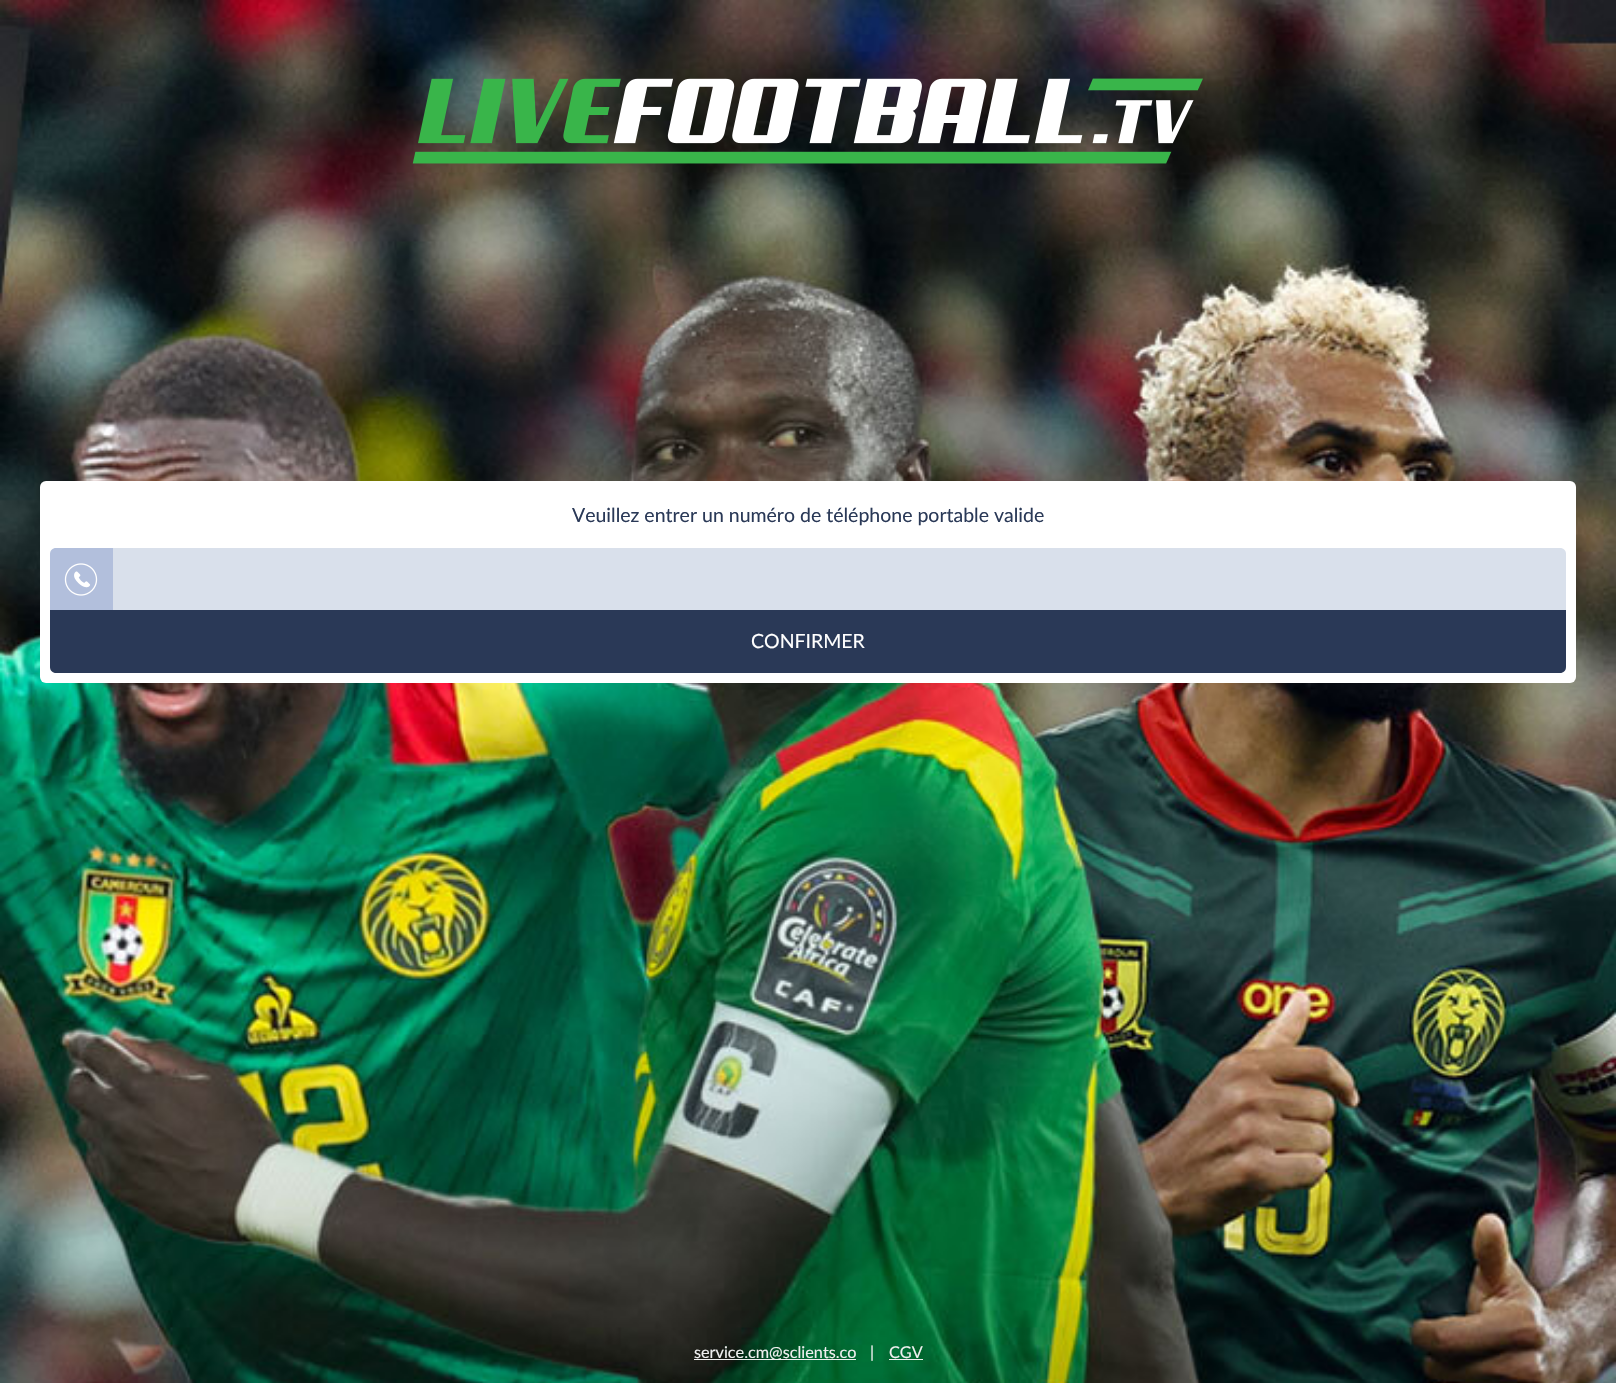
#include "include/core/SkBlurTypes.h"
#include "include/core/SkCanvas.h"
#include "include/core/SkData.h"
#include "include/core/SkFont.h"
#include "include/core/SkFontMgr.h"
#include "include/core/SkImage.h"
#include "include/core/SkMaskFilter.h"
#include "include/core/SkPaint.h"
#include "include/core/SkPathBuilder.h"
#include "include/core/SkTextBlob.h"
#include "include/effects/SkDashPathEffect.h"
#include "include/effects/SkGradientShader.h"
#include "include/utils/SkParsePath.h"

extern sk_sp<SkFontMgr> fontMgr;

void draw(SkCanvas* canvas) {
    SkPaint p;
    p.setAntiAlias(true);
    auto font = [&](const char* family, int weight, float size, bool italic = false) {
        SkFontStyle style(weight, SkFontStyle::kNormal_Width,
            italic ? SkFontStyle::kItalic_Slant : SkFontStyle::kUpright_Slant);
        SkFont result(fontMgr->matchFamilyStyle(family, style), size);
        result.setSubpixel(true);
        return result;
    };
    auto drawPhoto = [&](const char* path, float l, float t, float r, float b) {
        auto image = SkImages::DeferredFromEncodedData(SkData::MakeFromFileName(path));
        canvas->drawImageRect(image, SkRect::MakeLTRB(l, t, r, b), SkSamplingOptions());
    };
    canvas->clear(0xFFFFFFFF);
    drawPhoto("media/1.png", 0, 0, 1616, 1383);
    drawPhoto("media/2.png", 412, 78, 1203, 164);
    p.setColor(0xFFFFFFFF);
    canvas->drawRoundRect(SkRect::MakeLTRB(40, 481, 1576, 683), 6, 6, p);
    auto font1 = font("Lato", 400, 19.5f);
    p.setColor(0xFF2A3957);
    canvas->drawString("Veuillez entrer un numéro de téléphone portable valide", 572, 522, font1, p);
    p.setColor(0xFFB2BFDC);
    canvas->drawPath(SkPathBuilder().moveTo(56, 548).lineTo(113, 548).lineTo(113, 610).lineTo(50, 610).lineTo(50, 554).cubicTo(50, 550.5f, 52.5f, 548, 56, 548).close().detach(), p);
    drawPhoto("media/3.png", 64, 563, 98, 596);
    p.setColor(0xFFD9E0EB);
    canvas->drawPath(SkPathBuilder().moveTo(113, 548).lineTo(1560, 548).cubicTo(1563.5f, 548, 1566, 550.5f, 1566, 554).lineTo(1566, 610).lineTo(113, 610).close().detach(), p);
    p.setColor(0xFF2A3957);
    canvas->drawPath(SkPathBuilder().moveTo(50, 610).lineTo(1566, 610).lineTo(1566, 667).cubicTo(1566, 670.5f, 1563.5f, 673, 1560, 673).lineTo(56, 673).cubicTo(52.5f, 673, 50, 670.5f, 50, 667).close().detach(), p);
    p.setColor(0xFFFFFFFF);
    canvas->drawString("CONFIRMER", 751, 648, font1, p);
    p.setColor(0xFFF0F0F0);
    canvas->drawRect(SkRect::MakeLTRB(694, 1359, 856, 1360), p);
    auto font2 = font("Lato", 400, 16.25f);
    {
        const struct { const char* s; float x, y; } items[] = {
            {"service.cm@sclients.co", 694, 1358},
            {"|", 870, 1358},
            {"CGV", 889, 1358},
        };
        for (auto [s, x, y] : items) {
            canvas->drawString(s, x, y, font2, p);
        }
    }
    canvas->drawRect(SkRect::MakeLTRB(889, 1359, 923, 1360), p);
}
